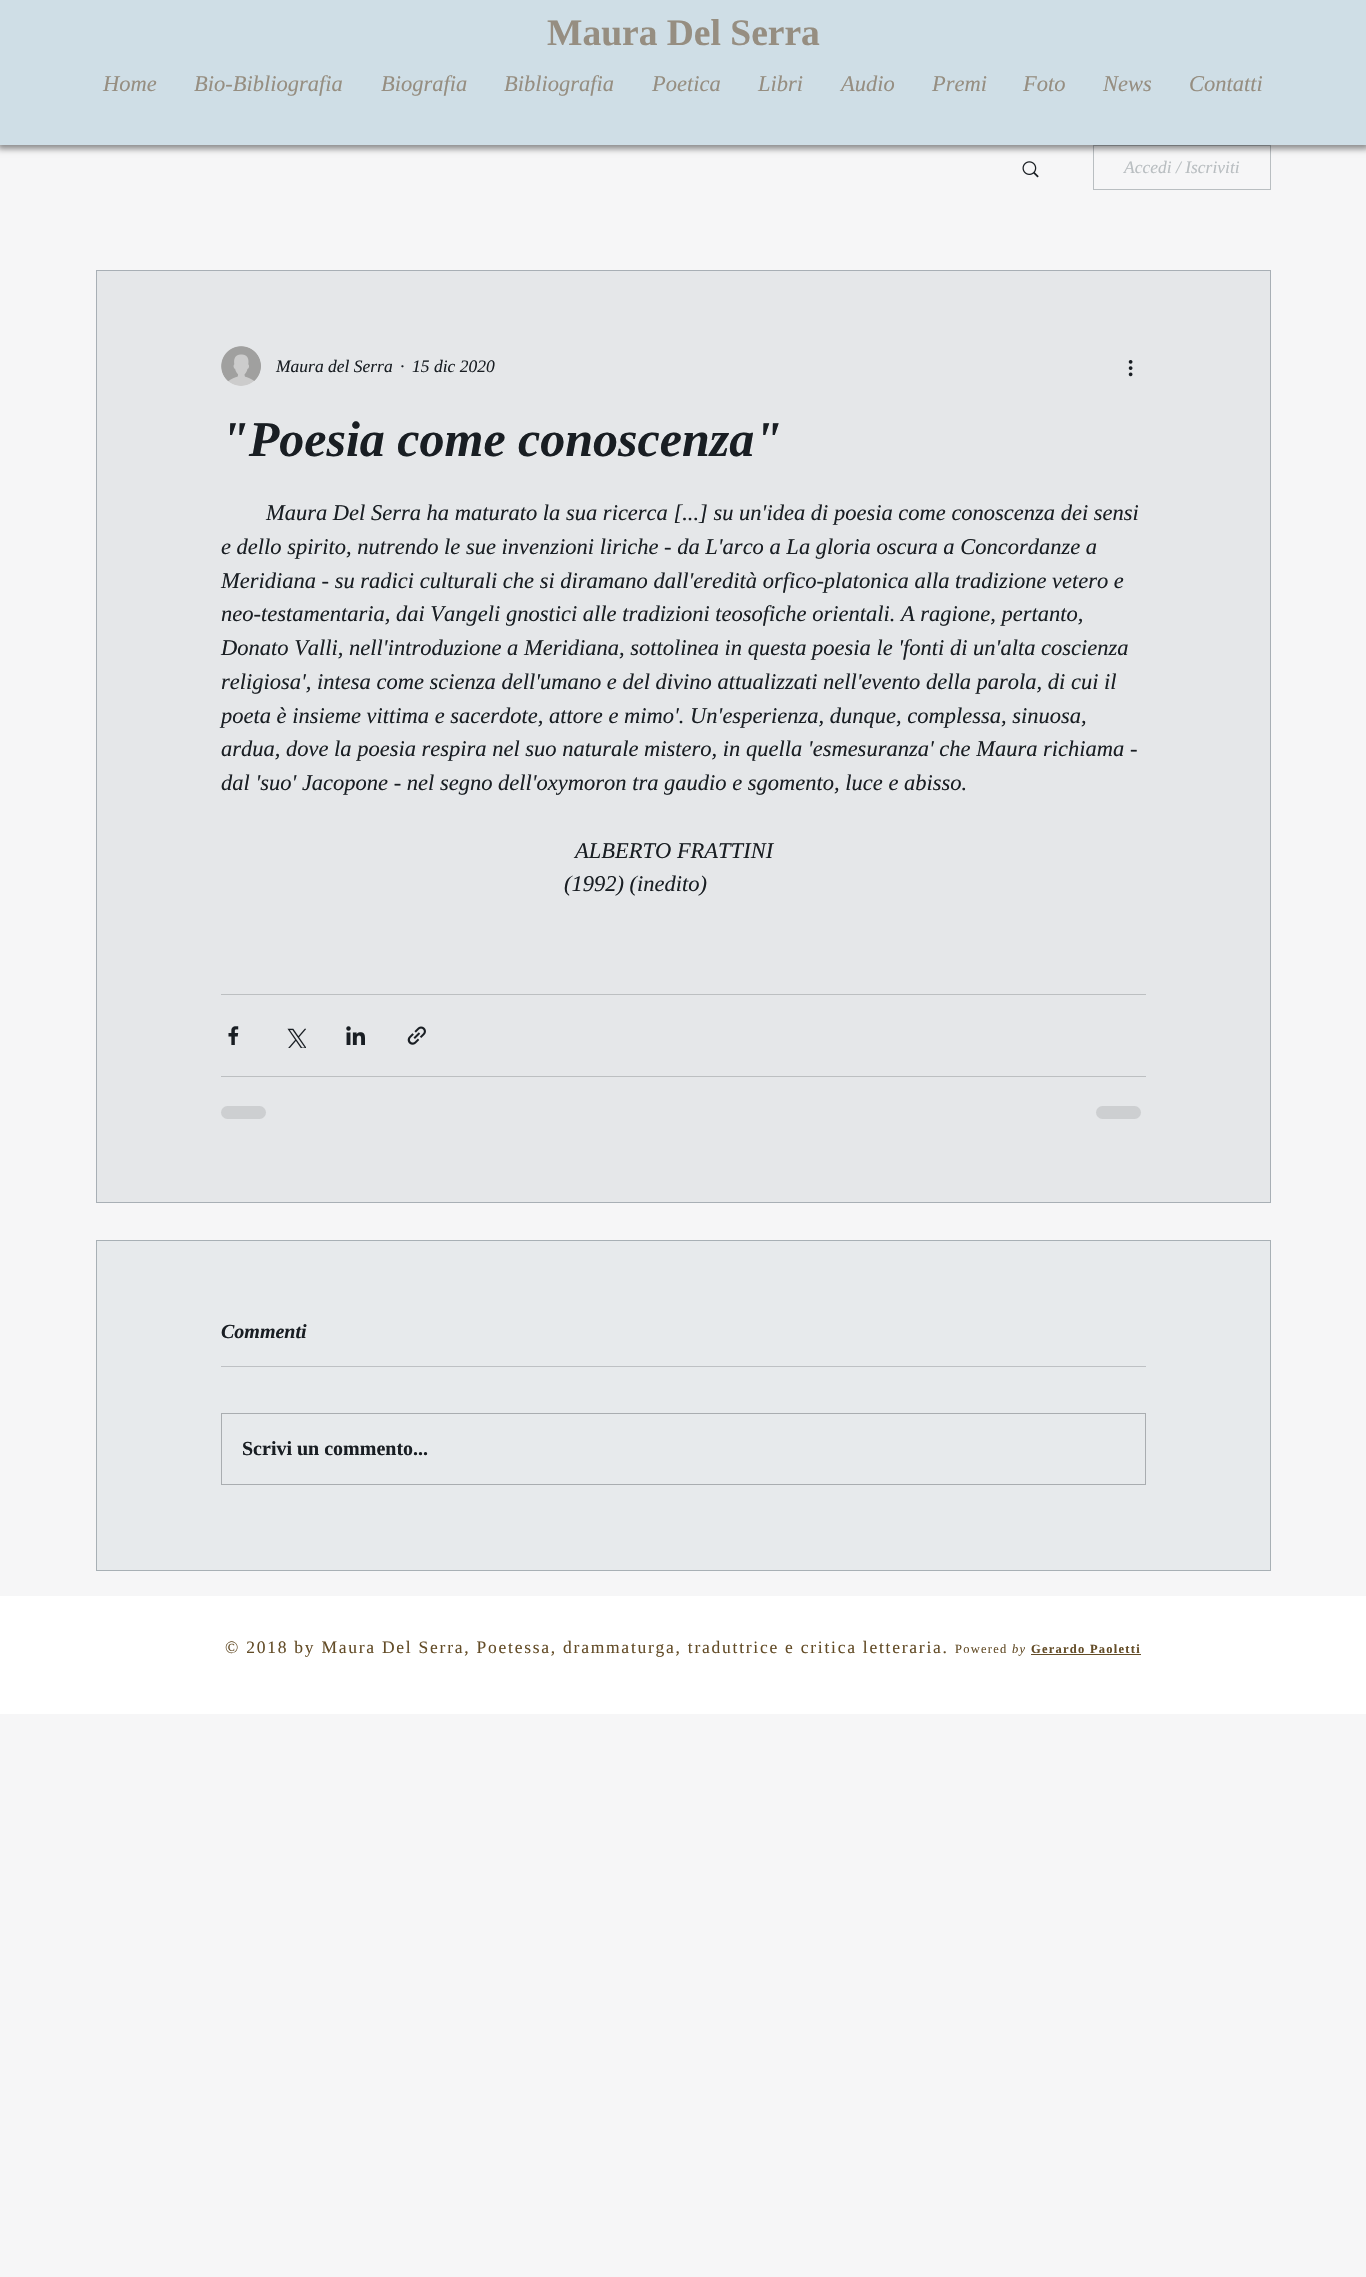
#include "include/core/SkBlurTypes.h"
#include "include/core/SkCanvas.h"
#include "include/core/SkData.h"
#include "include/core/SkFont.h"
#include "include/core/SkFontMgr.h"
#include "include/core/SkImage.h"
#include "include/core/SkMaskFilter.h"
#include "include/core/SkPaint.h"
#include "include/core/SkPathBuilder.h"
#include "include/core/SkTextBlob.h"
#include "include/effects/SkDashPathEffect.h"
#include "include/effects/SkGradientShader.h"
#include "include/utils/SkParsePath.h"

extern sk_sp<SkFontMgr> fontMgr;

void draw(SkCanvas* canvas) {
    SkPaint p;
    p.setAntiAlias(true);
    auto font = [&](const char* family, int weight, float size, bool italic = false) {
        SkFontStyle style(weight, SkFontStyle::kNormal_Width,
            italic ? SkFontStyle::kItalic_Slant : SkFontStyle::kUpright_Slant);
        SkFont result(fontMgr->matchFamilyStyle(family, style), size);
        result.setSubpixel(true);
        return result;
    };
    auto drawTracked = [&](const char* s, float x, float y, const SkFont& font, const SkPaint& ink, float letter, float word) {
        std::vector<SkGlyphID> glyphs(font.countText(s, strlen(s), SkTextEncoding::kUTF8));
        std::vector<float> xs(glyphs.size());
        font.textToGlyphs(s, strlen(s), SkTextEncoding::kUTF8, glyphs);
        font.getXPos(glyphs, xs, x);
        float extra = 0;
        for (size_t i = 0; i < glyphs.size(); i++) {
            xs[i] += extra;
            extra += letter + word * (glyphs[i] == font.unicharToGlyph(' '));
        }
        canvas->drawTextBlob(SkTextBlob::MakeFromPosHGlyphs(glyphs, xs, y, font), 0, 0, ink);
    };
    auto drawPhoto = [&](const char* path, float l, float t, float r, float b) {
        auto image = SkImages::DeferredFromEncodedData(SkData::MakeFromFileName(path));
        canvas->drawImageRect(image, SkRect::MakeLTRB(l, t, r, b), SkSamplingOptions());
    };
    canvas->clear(0xFFF6F6F7);
    p.setStyle(SkPaint::kStroke_Style);
    p.setStrokeWidth(1);
    p.setColor(0xFFB9BEC1);
    canvas->drawRect(SkRect::MakeLTRB(1093.5f, 145.5f, 1270.5f, 189.5f), p);
    p.setStyle(SkPaint::kFill_Style);
    p.setColor(0x6E000000);
    p.setMaskFilter(SkMaskFilter::MakeBlur(kNormal_SkBlurStyle, 3));
    canvas->drawRect(SkRect::MakeLTRB(-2, -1, 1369, 149), p);
    p.setMaskFilter(nullptr);
    p.setColor(0xFFCFDEE6);
    canvas->drawRect(SkRect::MakeLTRB(0, 0, 1366, 145), p);
    auto font1 = font("Liberation Serif", 700, 37.5f);
    p.setColor(0xFF968E81);
    canvas->drawString("Maura Del Serra", 547, 45, font1, p);
    auto font2 = font("Liberation Serif", 400, 22.5f, true);
    {
        const struct { const char* s; float x, y; } items[] = {
            {"Home", 103, 91},
            {"Bio-Bibliografia", 194, 91},
            {"Biografia", 381, 91},
            {"Bibliografia", 504, 91},
            {"Poetica", 652, 91},
            {"Libri", 758, 91},
            {"Audio", 841, 91},
            {"Premi", 932, 91},
            {"Foto", 1023, 91},
            {"News", 1103, 91},
            {"Contatti", 1189, 91},
        };
        for (auto [s, x, y] : items) {
            canvas->drawString(s, x, y, font2, p);
        }
    }
    drawPhoto("media/1.png", 1022, 161, 1039, 178);
    auto font3 = font("Liberation Serif", 400, 17.5f, true);
    p.setColor(0xFFB9BEC1);
    canvas->drawString("Accedi / Iscriviti", 1124, 173, font3, p);
    p.setColor(0xFFE5E7E9);
    canvas->drawRect(SkRect::MakeLTRB(96.5f, 270.5f, 1270.5f, 1202.5f), p);
    p.setStyle(SkPaint::kStroke_Style);
    p.setColor(0xFFA8AFB5);
    canvas->drawRect(SkRect::MakeLTRB(96.5f, 270.5f, 1270.5f, 1202.5f), p);
    drawPhoto("media/2.png", 221, 346, 261, 386);
    p.setStyle(SkPaint::kFill_Style);
    p.setColor(0xFF191E23);
    {
        const struct { const char* s; float x, y; } items[] = {
            {"Maura del Serra", 276, 372},
            {"·", 400, 372},
            {"15 dic 2020", 412, 372},
        };
        for (auto [s, x, y] : items) {
            canvas->drawString(s, x, y, font3, p);
        }
    }
    drawPhoto("media/3.png", 1128, 360, 1133, 377);
    auto font4 = font("Liberation Serif", 700, 50, true);
    canvas->drawString("\"Poesia come conoscenza\"", 221, 456, font4, p);
    {
        const struct { const char* s; float x, y; } items[] = {
            {"Maura Del Serra ha maturato la sua ricerca [...] su un'idea di poesia come conoscenza dei sensi", 266, 520},
            {"e dello spirito, nutrendo le sue invenzioni liriche - da L'arco a La gloria oscura a Concordanze a", 221, 554},
            {"Meridiana - su radici culturali che si diramano dall'eredità orfico-platonica alla tradizione vetero e", 221, 588},
            {"neo-testamentaria, dai Vangeli gnostici alle tradizioni teosofiche orientali. A ragione, pertanto,", 221, 621},
            {"Donato Valli, nell'introduzione a Meridiana, sottolinea in questa poesia le 'fonti di un'alta coscienza", 221, 655},
            {"religiosa', intesa come scienza dell'umano e del divino attualizzati nell'evento della parola, di cui il", 221, 689},
            {"poeta è insieme vittima e sacerdote, attore e mimo'. Un'esperienza, dunque, complessa, sinuosa,", 221, 723},
            {"ardua, dove la poesia respira nel suo naturale mistero, in quella 'esmesuranza' che Maura richiama -", 221, 756},
            {"dal 'suo' Jacopone - nel segno dell'oxymoron tra gaudio e sgomento, luce e abisso.", 221, 790},
            {"ALBERTO FRATTINI", 575, 858},
            {"(1992) (inedito)", 564, 891},
        };
        for (auto [s, x, y] : items) {
            canvas->drawString(s, x, y, font2, p);
        }
    }
    p.setColor(0xFFBCBFC1);
    canvas->drawRect(SkRect::MakeLTRB(221, 994, 1146, 995), p);
    drawPhoto("media/4.png", 228, 1026, 239, 1045);
    drawPhoto("media/5.png", 287, 1028, 306, 1048);
    drawPhoto("media/6.png", 346, 1026, 365, 1045);
    drawPhoto("media/7.png", 407, 1026, 426, 1045);
    canvas->drawRect(SkRect::MakeLTRB(221, 1076, 1146, 1077), p);
    p.setColor(0xFFCDCFD1);
    canvas->drawRoundRect(SkRect::MakeLTRB(221, 1106, 266, 1119), 6.5f, 6.5f, p);
    canvas->drawRoundRect(SkRect::MakeLTRB(1096, 1106, 1141, 1119), 6.5f, 6.5f, p);
    p.setColor(0xFFE7EAEC);
    canvas->drawRect(SkRect::MakeLTRB(96.5f, 1240.5f, 1270.5f, 1570.5f), p);
    p.setStyle(SkPaint::kStroke_Style);
    p.setColor(0xFFA8B0B5);
    canvas->drawRect(SkRect::MakeLTRB(96.5f, 1240.5f, 1270.5f, 1570.5f), p);
    auto font5 = font("Liberation Serif", 700, 20, true);
    p.setStyle(SkPaint::kFill_Style);
    p.setColor(0xFF191E23);
    canvas->drawString("Commenti", 221, 1338, font5, p);
    p.setColor(0xFFBEC1C4);
    canvas->drawRect(SkRect::MakeLTRB(221, 1366, 1146, 1367), p);
    p.setStyle(SkPaint::kStroke_Style);
    p.setColor(0xFFA9ADB0);
    canvas->drawRect(SkRect::MakeLTRB(221.5f, 1413.5f, 1145.5f, 1484.5f), p);
    canvas->save();
    canvas->clipRect(SkRect::MakeLTRB(243, 1434, 1125, 1464));
    auto font6 = font("Liberation Serif", 700, 20);
    p.setStyle(SkPaint::kFill_Style);
    p.setColor(0xFF191E23);
    canvas->drawString("Scrivi un commento...", 242, 1455, font6, p);
    canvas->restore();
    p.setColor(0xFFFFFFFF);
    canvas->drawRect(SkRect::MakeLTRB(0, 1596, 1366, 1714), p);
    auto font7 = font("Liberation Serif", 400, 17.5f);
    p.setColor(0xFF634C27);
    drawTracked("© 2018 by Maura Del Serra, Poetessa, drammaturga, traduttrice e critica letteraria.", 225, 1653, font7, p, 1.75f, 0);
    auto font8 = font("Liberation Serif", 400, 12.5f);
    drawTracked("Powered", 955, 1653, font8, p, 1.25f, 0);
    auto font9 = font("Liberation Serif", 400, 12.5f, true);
    drawTracked("by", 1012, 1653, font9, p, 1.25f, 0);
    auto font10 = font("Liberation Serif", 700, 12.5f);
    drawTracked("Gerardo Paoletti", 1031, 1653, font10, p, 1.25f, 0);
    canvas->drawRect(SkRect::MakeLTRB(1031, 1654, 1141, 1655), p);
}
